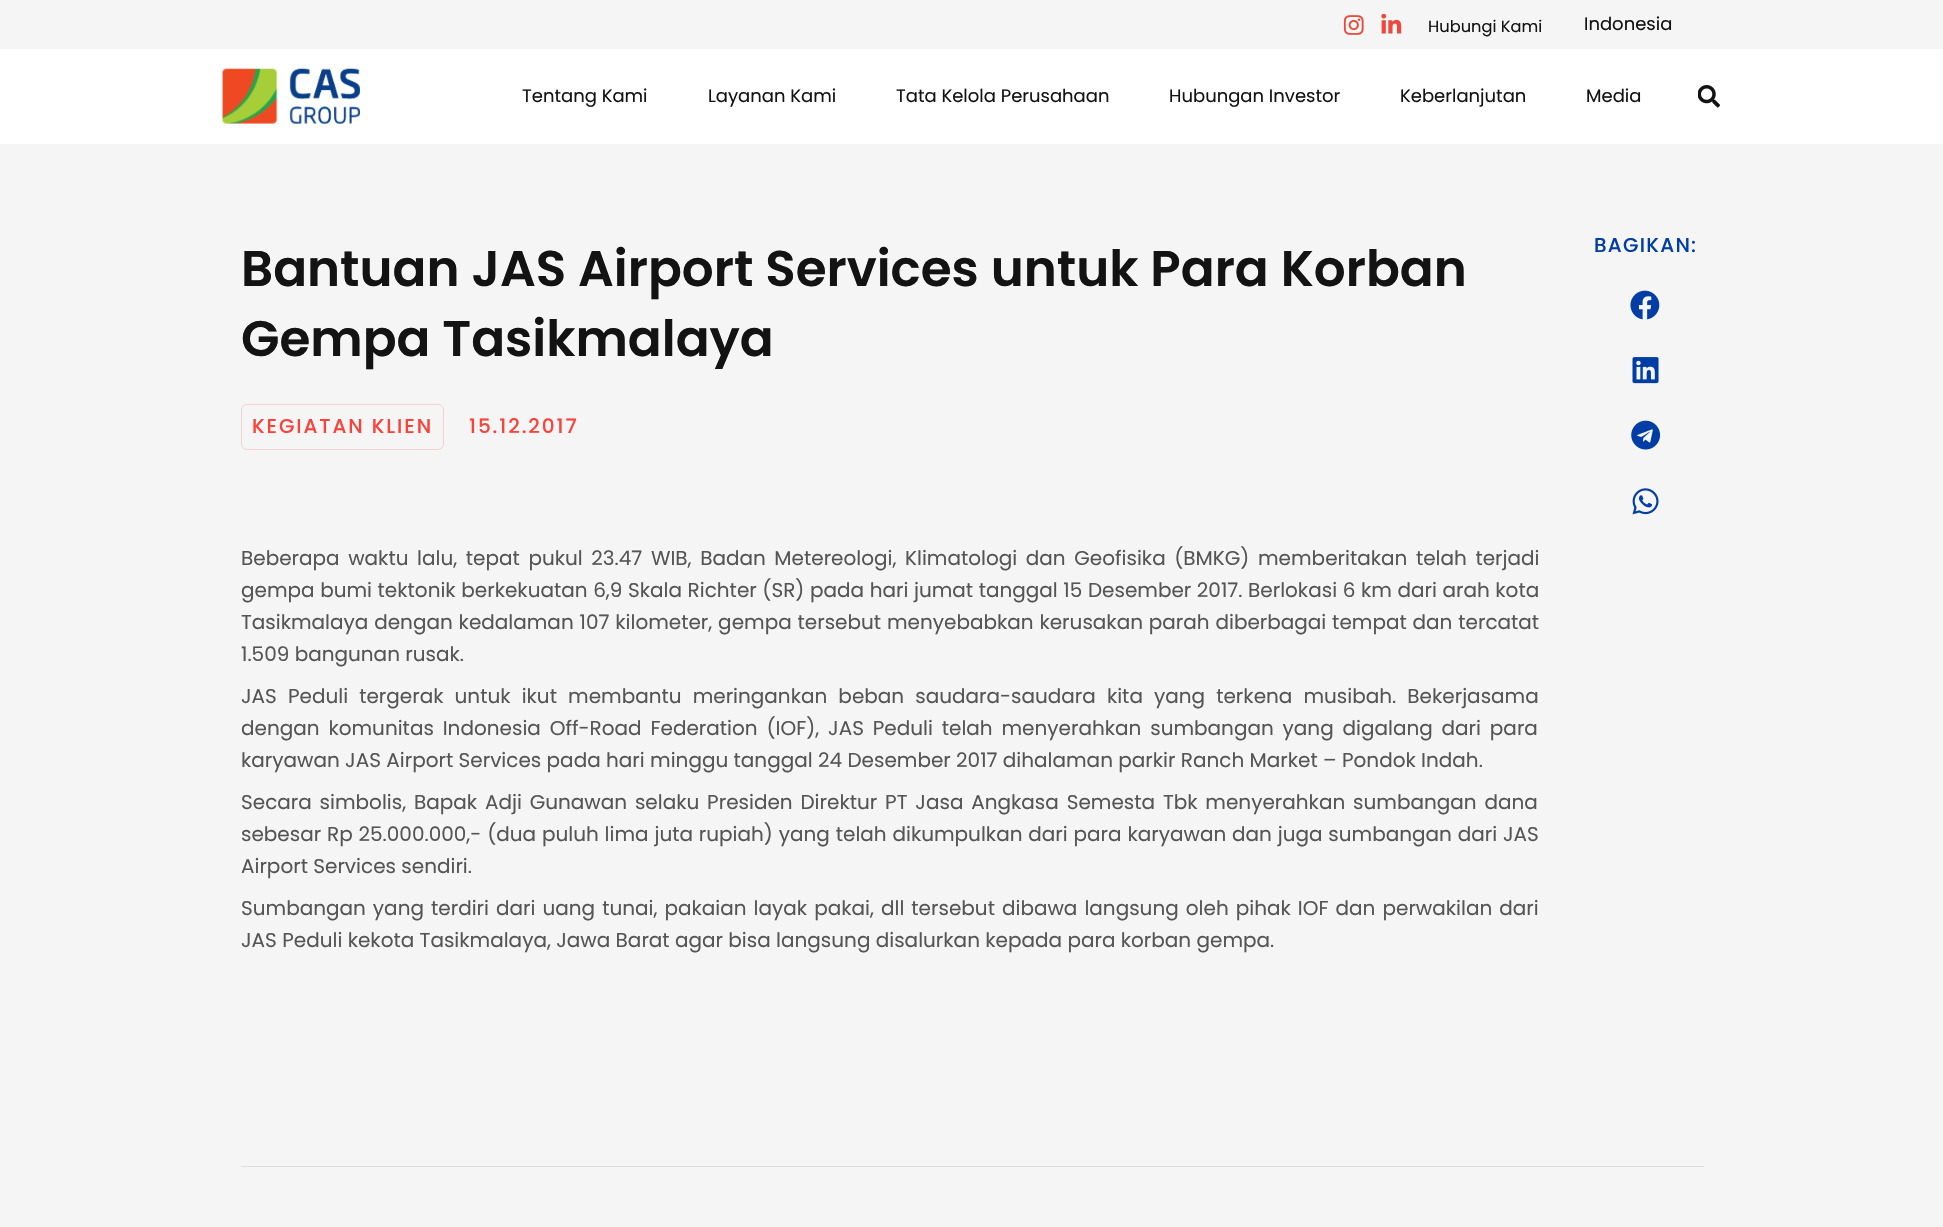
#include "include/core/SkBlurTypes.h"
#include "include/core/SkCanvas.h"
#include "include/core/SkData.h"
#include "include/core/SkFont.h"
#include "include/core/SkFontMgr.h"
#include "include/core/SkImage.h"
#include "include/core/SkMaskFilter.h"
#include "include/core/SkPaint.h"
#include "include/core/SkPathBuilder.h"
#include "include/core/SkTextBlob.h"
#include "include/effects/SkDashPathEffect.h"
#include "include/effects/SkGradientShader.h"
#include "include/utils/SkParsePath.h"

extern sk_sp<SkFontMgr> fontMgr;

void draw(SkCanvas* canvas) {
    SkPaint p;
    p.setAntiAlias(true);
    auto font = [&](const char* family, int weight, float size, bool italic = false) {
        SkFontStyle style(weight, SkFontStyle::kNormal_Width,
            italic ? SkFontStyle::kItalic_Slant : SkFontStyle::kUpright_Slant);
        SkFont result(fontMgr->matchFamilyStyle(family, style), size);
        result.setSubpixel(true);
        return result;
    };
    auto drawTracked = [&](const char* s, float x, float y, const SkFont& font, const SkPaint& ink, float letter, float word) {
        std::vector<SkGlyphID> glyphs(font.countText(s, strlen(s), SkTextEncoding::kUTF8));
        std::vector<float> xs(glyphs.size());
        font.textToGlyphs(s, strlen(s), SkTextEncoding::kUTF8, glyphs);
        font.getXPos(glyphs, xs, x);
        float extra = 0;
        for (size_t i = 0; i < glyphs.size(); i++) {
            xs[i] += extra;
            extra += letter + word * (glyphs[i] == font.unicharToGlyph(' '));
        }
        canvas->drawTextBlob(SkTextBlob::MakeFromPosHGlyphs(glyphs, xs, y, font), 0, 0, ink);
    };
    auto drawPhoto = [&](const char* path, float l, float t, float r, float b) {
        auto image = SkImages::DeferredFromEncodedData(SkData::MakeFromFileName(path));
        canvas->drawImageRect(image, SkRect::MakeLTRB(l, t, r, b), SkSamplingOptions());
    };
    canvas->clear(0xFFF5F5F5);
    drawPhoto("media/1.png", 1343, 15, 1364, 35);
    drawPhoto("media/2.png", 1381, 14, 1402, 34);
    auto font1 = font("Poppins", 400, 16.25f);
    p.setColor(0xFF131313);
    canvas->drawString("Hubungi Kami", 1428, 32, font1, p);
    auto font2 = font("Poppins", 400, 18);
    canvas->drawString("Indonesia", 1584, 30, font2, p);
    p.setColor(0xFFFFFFFF);
    canvas->drawRect(SkRect::MakeLTRB(0, 49, 1943, 144), p);
    drawPhoto("media/3.png", 222, 68, 360, 124);
    p.setColor(0xFF131313);
    {
        const struct { const char* s; float x, y; } items[] = {
            {"Tentang Kami", 522, 102},
            {"Layanan Kami", 708, 102},
            {"Tata Kelola Perusahaan", 896, 102},
            {"Hubungan Investor", 1169, 102},
            {"Keberlanjutan", 1400, 102},
            {"Media", 1586, 102},
        };
        for (auto [s, x, y] : items) {
            canvas->drawString(s, x, y, font2, p);
        }
    }
    drawPhoto("media/4.png", 1698, 85, 1720, 108);
    auto font3 = font("Poppins", 600, 50);
    canvas->drawString("Bantuan JAS Airport Services untuk Para Korban", 241, 286, font3, p);
    canvas->drawString("Gempa Tasikmalaya", 241, 356, font3, p);
    p.setStyle(SkPaint::kStroke_Style);
    p.setStrokeWidth(1);
    p.setColor(0xFFF6D1D0);
    canvas->drawRoundRect(SkRect::MakeLTRB(241.5f, 404.5f, 443.5f, 449.5f), 5.5f, 5.5f, p);
    auto font4 = font("Poppins", 500, 20);
    p.setStyle(SkPaint::kFill_Style);
    p.setColor(0xFFF9423A);
    drawTracked("KEGIATAN KLIEN", 252, 433, font4, p, 1.9f, 0);
    drawTracked("15.12.2017", 469, 433, font4, p, 1.9f, 0);
    auto font5 = font("Poppins", 400, 20);
    p.setColor(0xFF555555);
    drawTracked("Beberapa waktu lalu, tepat pukul 23.47 WIB, Badan Metereologi, Klimatologi dan Geofisika (BMKG) memberitakan telah terjadi", 241, 565, font5, p, 0, 3.25f);
    drawTracked("gempa bumi tektonik berkekuatan 6,9 Skala Richter (SR) pada hari jumat tanggal 15 Desember 2017. Berlokasi 6 km dari arah kota", 241, 597, font5, p, 0, 0.25f);
    drawTracked("Tasikmalaya dengan kedalaman 107 kilometer, gempa tersebut menyebabkan kerusakan parah diberbagai tempat dan tercatat", 241, 629, font5, p, 0, 0.5f);
    canvas->drawString("1.509 bangunan rusak.", 241, 661, font5, p);
    drawTracked("JAS Peduli tergerak untuk ikut membantu meringankan beban saudara-saudara kita yang terkena musibah. Bekerjasama", 241, 703, font5, p, 0, 5.75f);
    drawTracked("dengan komunitas Indonesia Off-Road Federation (IOF), JAS Peduli telah menyerahkan sumbangan yang digalang dari para", 241, 735, font5, p, 0, 3.5f);
    canvas->drawString("karyawan JAS Airport Services pada hari minggu tanggal 24 Desember 2017 dihalaman parkir Ranch Market – Pondok Indah.", 241, 767, font5, p);
    drawTracked("Secara simbolis, Bapak Adji Gunawan selaku Presiden Direktur PT Jasa Angkasa Semesta Tbk menyerahkan sumbangan dana", 241, 809, font5, p, 0, 2.5f);
    drawTracked("sebesar Rp 25.000.000,- (dua puluh lima juta rupiah) yang telah dikumpulkan dari para karyawan dan juga sumbangan dari JAS", 241, 841, font5, p, 0, 0.5f);
    canvas->drawString("Airport Services sendiri.", 241, 873, font5, p);
    drawTracked("Sumbangan yang terdiri dari uang tunai, pakaian layak pakai, dll tersebut dibawa langsung oleh pihak IOF dan perwakilan dari", 241, 915, font5, p, 0, 1.7f);
    canvas->drawString("JAS Peduli kekota Tasikmalaya, Jawa Barat agar bisa langsung disalurkan kepada para korban gempa.", 241, 947, font5, p);
    p.setColor(0xFF003DA5);
    drawTracked("BAGIKAN:", 1594, 252, font4, p, 1.25f, 0);
    drawPhoto("media/5.png", 1630, 290, 1660, 320);
    drawPhoto("media/6.png", 1632, 357, 1659, 384);
    drawPhoto("media/7.png", 1631, 420, 1661, 450);
    drawPhoto("media/8.png", 1632, 488, 1659, 515);
    p.setColor(0xFFDDDDDD);
    canvas->drawRect(SkRect::MakeLTRB(241, 1166, 1704, 1167), p);
}
